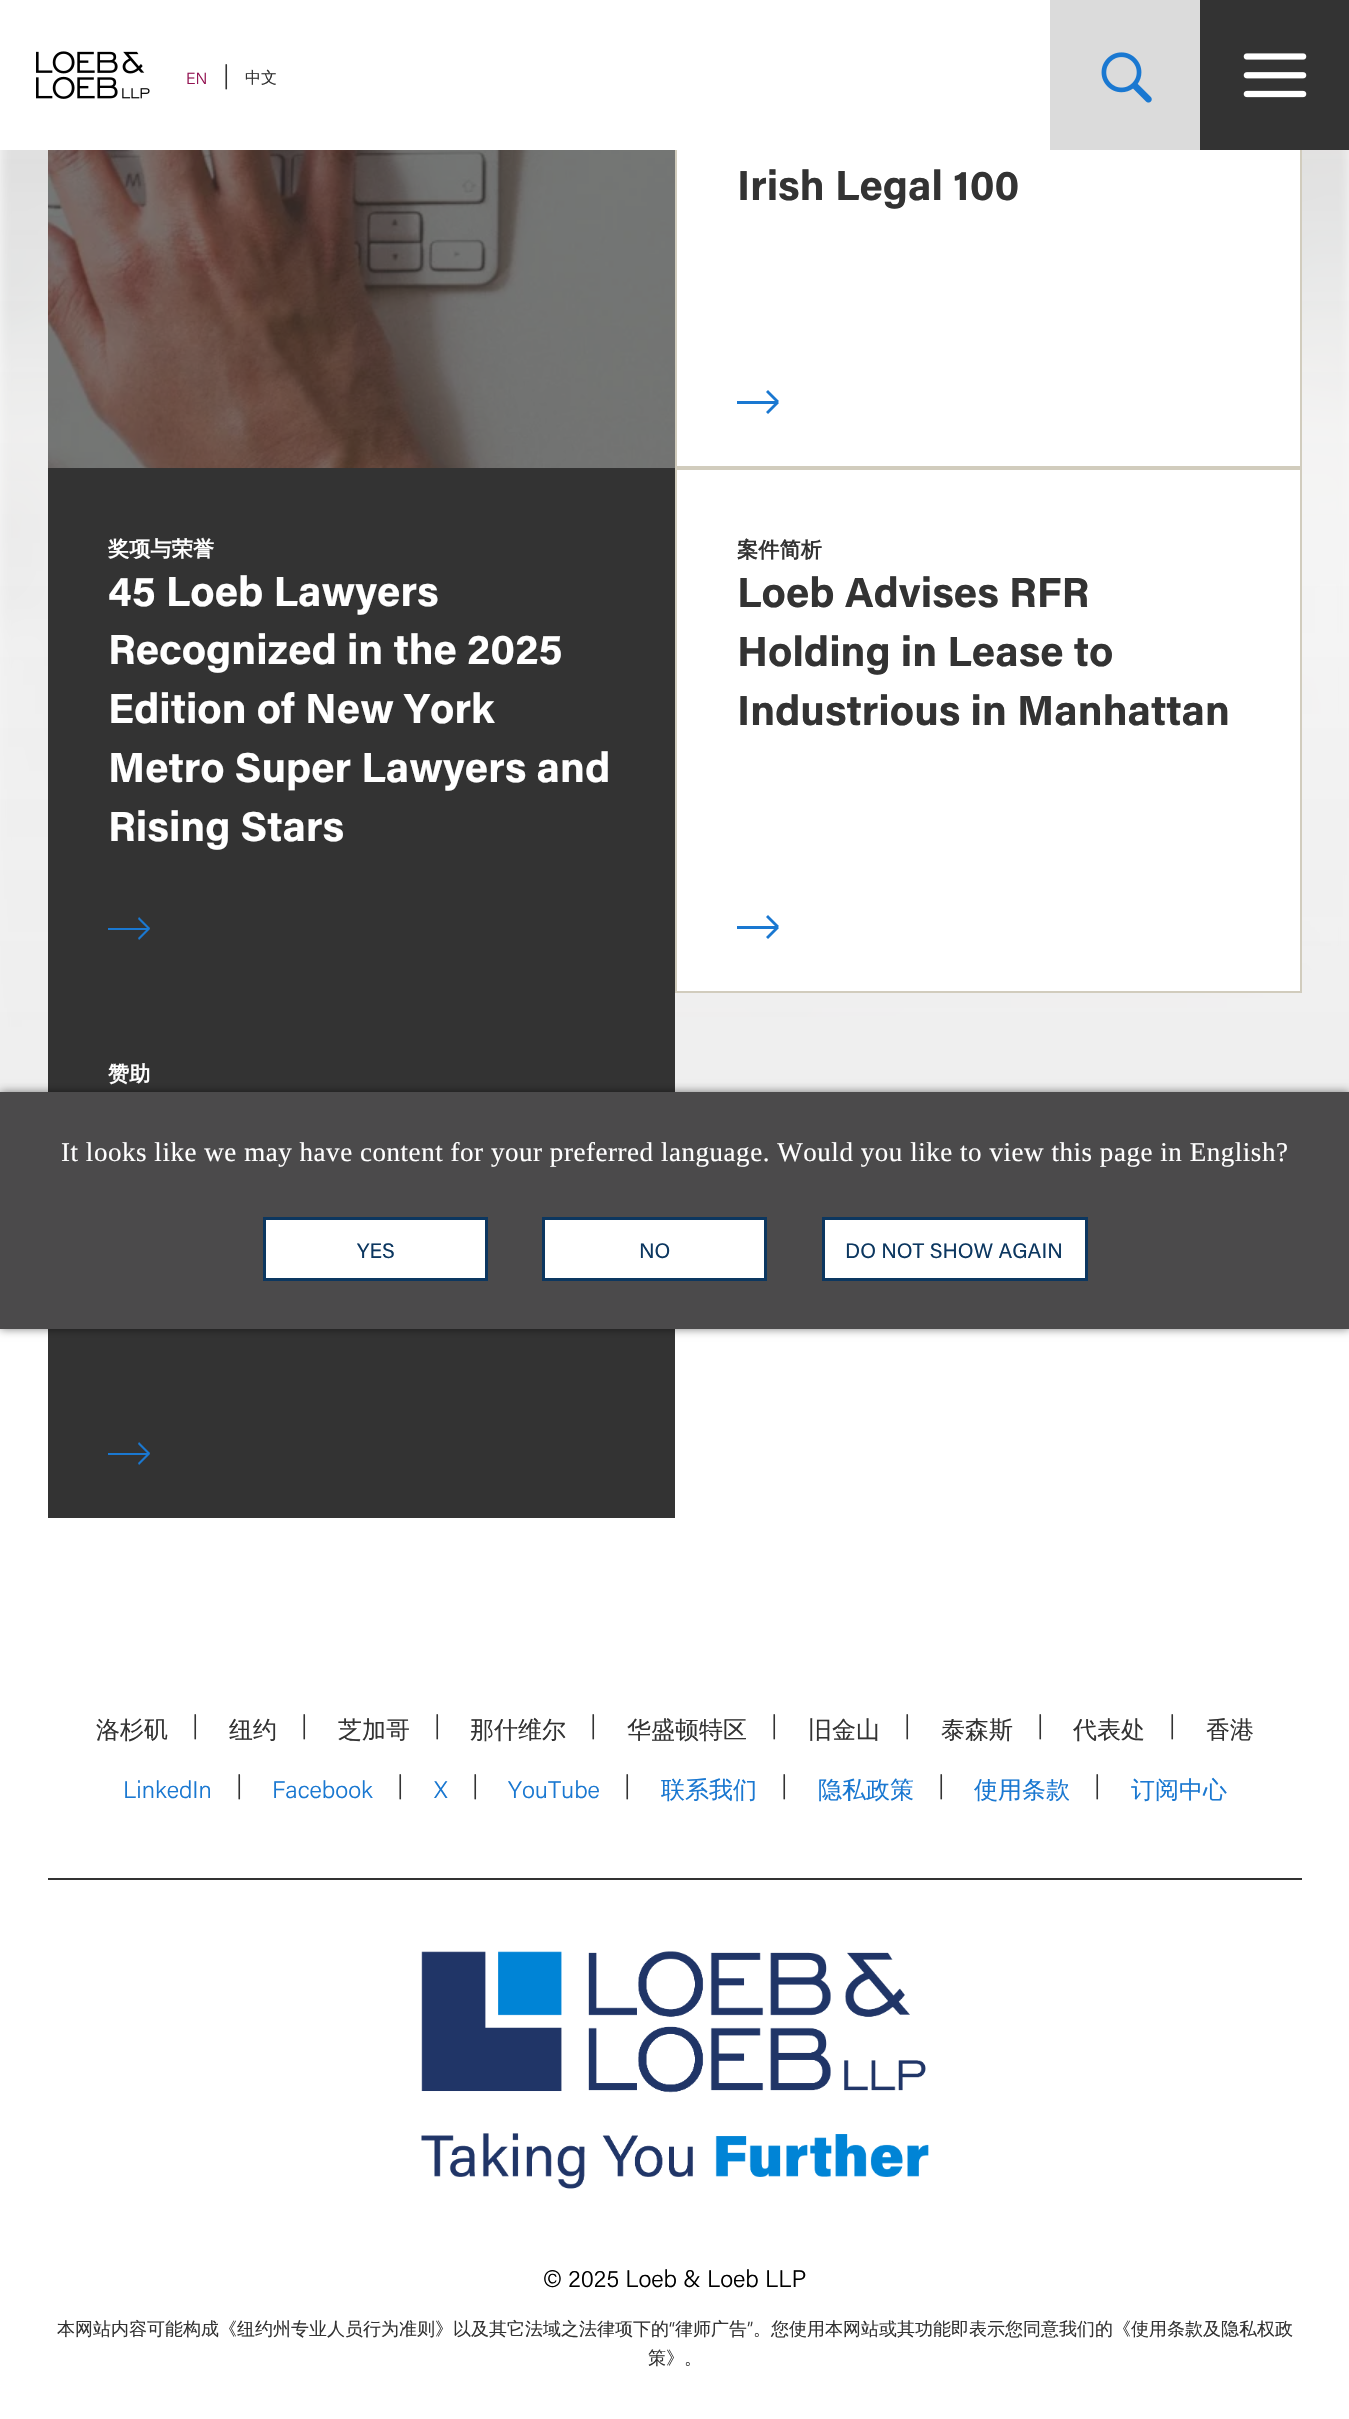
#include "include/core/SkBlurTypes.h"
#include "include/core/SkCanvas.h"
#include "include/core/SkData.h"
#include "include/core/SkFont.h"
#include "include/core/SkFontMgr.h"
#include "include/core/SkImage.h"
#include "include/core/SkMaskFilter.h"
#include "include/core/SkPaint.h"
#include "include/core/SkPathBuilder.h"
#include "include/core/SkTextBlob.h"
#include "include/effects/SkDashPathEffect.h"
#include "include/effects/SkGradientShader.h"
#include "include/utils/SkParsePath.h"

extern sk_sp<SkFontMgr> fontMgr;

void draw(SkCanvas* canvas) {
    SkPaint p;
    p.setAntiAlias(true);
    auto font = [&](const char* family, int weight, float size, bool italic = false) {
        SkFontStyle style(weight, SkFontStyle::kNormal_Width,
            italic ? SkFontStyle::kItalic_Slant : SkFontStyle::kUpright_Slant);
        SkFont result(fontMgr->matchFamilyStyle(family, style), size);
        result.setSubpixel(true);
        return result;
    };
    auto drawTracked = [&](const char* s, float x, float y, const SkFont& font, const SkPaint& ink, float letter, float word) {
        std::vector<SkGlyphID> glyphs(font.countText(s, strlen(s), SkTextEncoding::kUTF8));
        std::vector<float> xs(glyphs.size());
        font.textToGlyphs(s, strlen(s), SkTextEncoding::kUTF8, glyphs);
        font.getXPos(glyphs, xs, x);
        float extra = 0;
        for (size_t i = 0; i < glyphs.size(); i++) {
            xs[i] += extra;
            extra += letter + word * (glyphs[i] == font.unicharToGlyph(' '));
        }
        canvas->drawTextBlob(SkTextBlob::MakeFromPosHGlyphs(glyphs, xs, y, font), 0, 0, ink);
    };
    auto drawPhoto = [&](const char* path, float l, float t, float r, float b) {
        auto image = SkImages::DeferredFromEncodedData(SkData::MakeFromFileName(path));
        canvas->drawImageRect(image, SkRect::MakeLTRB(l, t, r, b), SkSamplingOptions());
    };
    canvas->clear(0xFFFFFFFF);
    drawPhoto("media/4.png", 0, 150, 1349, 1092);
    {
        const SkColor colors[] = {0x00EEEEEE, 0xFFEEEEEE};
        const float stops[] = {0, 1};
        const SkPoint ends[] = {{675, -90}, {675, 1119}};
        p.setShader(SkGradientShader::MakeLinear(ends, colors, stops, 2, SkTileMode::kClamp));
        p.setAlpha(255);
    }
    canvas->drawRect(SkRect::MakeLTRB(0, 150, 1349, 1092), p);
    p.setShader(nullptr);
    p.setColor(0xFFFFFFFF);
    canvas->drawRect(SkRect::MakeLTRB(677, 150, 1300, 466), p);
    p.setStyle(SkPaint::kStroke_Style);
    p.setStrokeWidth(2);
    p.setColor(0xFFD1CCBD);
    canvas->drawRect(SkRect::MakeLTRB(676, -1, 1301, 467), p);
    p.setStyle(SkPaint::kFill_Style);
    p.setColor(0xFFFFFFFF);
    canvas->drawRect(SkRect::MakeLTRB(675, 0, 677, 150), p);
    drawPhoto("media/1.png", 36, 51, 150, 99);
    auto font1 = font("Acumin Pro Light", 300, 16);
    p.setColor(0xFF931352);
    canvas->drawString("EN", 186, 84, font1, p);
    auto font2 = font("Acumin Pro Light", 300, 24);
    p.setColor(0xFF333333);
    canvas->drawString("|", 223, 83, font2, p);
    auto font3 = font("WenQuanYi Zen Hei", 500, 16);
    canvas->drawString("中文", 245, 83, font3, p);
    p.setColor(0xFFDBDBDB);
    canvas->drawRect(SkRect::MakeLTRB(1050, 0, 1200, 150), p);
    drawPhoto("media/2.png", 1101, 52, 1152, 103);
    p.setColor(0xFF333333);
    canvas->drawRect(SkRect::MakeLTRB(1200, 0, 1349, 150), p);
    drawPhoto("media/3.png", 1243, 53, 1307, 98);
    drawPhoto("media/5.png", 48, 150, 675, 468);
    auto font4 = font("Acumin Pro", 700, 42);
    canvas->drawString("Irish Legal 100", 737, 200, font4, p);
    canvas->save();
    canvas->clipRect(SkRect::MakeLTRB(737, 390, 782, 414));
    p.setColor(0xFF1A78D1);
    canvas->drawPath(SkPathBuilder().moveTo(671, 404).lineTo(671, 401).lineTo(777, 401).lineTo(777, 404).close().moveTo(766, 392).lineTo(768, 390).lineTo(779, 401).lineTo(777, 403).close().moveTo(777, 401).lineTo(779, 403).lineTo(768, 414).lineTo(766, 412).close().detach(), p);
    canvas->restore();
    p.setColor(0xFF333333);
    canvas->drawRect(SkRect::MakeLTRB(48, 468, 675, 1518), p);
    auto font5 = font("WenQuanYi Zen Hei", 700, 21);
    p.setColor(0xFFFFFFFF);
    drawTracked("奖项与荣誉", 108, 556, font5, p, 0.25f, 0);
    {
        const struct { const char* s; float x, y; } items[] = {
            {"45 Loeb Lawyers", 108, 606},
            {"Recognized in the 2025", 108, 664},
            {"Edition of New York", 108, 723},
            {"Metro Super Lawyers and", 108, 782},
            {"Rising Stars", 108, 841},
        };
        for (auto [s, x, y] : items) {
            canvas->drawString(s, x, y, font4, p);
        }
    }
    canvas->save();
    canvas->clipRect(SkRect::MakeLTRB(108, 917, 153, 941));
    p.setColor(0xFF1A78D1);
    canvas->drawPath(SkPathBuilder().moveTo(43, 930).lineTo(43, 928).lineTo(148, 928).lineTo(148, 930).close().moveTo(138, 919).lineTo(139, 917).lineTo(150, 928).lineTo(149, 930).close().moveTo(149, 927).lineTo(150, 929).lineTo(139, 940).lineTo(138, 938).close().detach(), p);
    canvas->restore();
    p.setColor(0xFFFFFFFF);
    canvas->drawRect(SkRect::MakeLTRB(676, 469, 1301, 992), p);
    p.setStyle(SkPaint::kStroke_Style);
    p.setColor(0xFFD1CCBD);
    canvas->drawRect(SkRect::MakeLTRB(676, 469, 1301, 992), p);
    p.setStyle(SkPaint::kFill_Style);
    p.setColor(0xFF333333);
    drawTracked("案件简析", 737, 557, font5, p, 0.25f, 0);
    {
        const struct { const char* s; float x, y; } items[] = {
            {"Loeb Advises RFR", 737, 607},
            {"Holding in Lease to", 737, 666},
            {"Industrious in Manhattan", 737, 725},
        };
        for (auto [s, x, y] : items) {
            canvas->drawString(s, x, y, font4, p);
        }
    }
    canvas->save();
    canvas->clipRect(SkRect::MakeLTRB(737, 915, 782, 939));
    p.setColor(0xFF1A78D1);
    canvas->drawPath(SkPathBuilder().moveTo(671, 929).lineTo(671, 926).lineTo(777, 926).lineTo(777, 929).close().moveTo(766, 917).lineTo(768, 915).lineTo(779, 926).lineTo(777, 928).close().moveTo(777, 926).lineTo(779, 928).lineTo(768, 939).lineTo(766, 937).close().detach(), p);
    canvas->restore();
    p.setColor(0xFFFFFFFF);
    drawTracked("赞助", 108, 1081, font5, p, 0.25f, 0);
    canvas->save();
    canvas->clipRect(SkRect::MakeLTRB(108, 1442, 153, 1466));
    p.setColor(0xFF1A78D1);
    canvas->drawPath(SkPathBuilder().moveTo(43, 1455).lineTo(43, 1453).lineTo(148, 1453).lineTo(148, 1455).close().moveTo(138, 1444).lineTo(139, 1442).lineTo(150, 1453).lineTo(149, 1455).close().moveTo(149, 1452).lineTo(150, 1454).lineTo(139, 1465).lineTo(138, 1463).close().detach(), p);
    canvas->restore();
    p.setColor(0x80000000);
    p.setMaskFilter(SkMaskFilter::MakeBlur(kNormal_SkBlurStyle, 4.5f));
    canvas->drawRect(SkRect::MakeLTRB(0, 1092, 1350, 1329), p);
    p.setMaskFilter(nullptr);
    p.setColor(0xFF4B4A4B);
    canvas->drawRect(SkRect::MakeLTRB(0, 1092, 1349, 1329), p);
    auto font6 = font("Liberation Serif", 400, 27);
    p.setColor(0xFFFFFFFF);
    drawTracked("It looks like we may have content for your preferred language. Would you like to view this page in English?", 61, 1161, font6, p, 0.54f, 0);
    canvas->drawRect(SkRect::MakeLTRB(264.5f, 1218.5f, 486.5f, 1279.5f), p);
    p.setStyle(SkPaint::kStroke_Style);
    p.setStrokeWidth(3);
    p.setColor(0xFF0C3760);
    canvas->drawRect(SkRect::MakeLTRB(264.5f, 1218.5f, 486.5f, 1279.5f), p);
    auto font7 = font("Acumin Pro", 400, 21);
    p.setStyle(SkPaint::kFill_Style);
    canvas->drawString("YES", 357, 1258, font7, p);
    p.setColor(0xFFFFFFFF);
    canvas->drawRect(SkRect::MakeLTRB(543.5f, 1218.5f, 765.5f, 1279.5f), p);
    p.setStyle(SkPaint::kStroke_Style);
    p.setColor(0xFF0C3760);
    canvas->drawRect(SkRect::MakeLTRB(543.5f, 1218.5f, 765.5f, 1279.5f), p);
    p.setStyle(SkPaint::kFill_Style);
    canvas->drawString("NO", 639, 1258, font7, p);
    p.setColor(0xFFFFFFFF);
    canvas->drawRect(SkRect::MakeLTRB(823.5f, 1218.5f, 1086.5f, 1279.5f), p);
    p.setStyle(SkPaint::kStroke_Style);
    p.setColor(0xFF0C3760);
    canvas->drawRect(SkRect::MakeLTRB(823.5f, 1218.5f, 1086.5f, 1279.5f), p);
    p.setStyle(SkPaint::kFill_Style);
    canvas->drawString("DO NOT SHOW AGAIN", 845, 1258, font7, p);
    auto font8 = font("WenQuanYi Zen Hei", 500, 24);
    p.setColor(0xFF333333);
    canvas->drawString("洛杉矶", 96, 1738, font8, p);
    canvas->drawString("|", 192, 1733, font2, p);
    canvas->drawString("纽约", 229, 1738, font8, p);
    canvas->drawString("|", 301, 1733, font2, p);
    canvas->drawString("芝加哥", 338, 1738, font8, p);
    canvas->drawString("|", 434, 1733, font2, p);
    canvas->drawString("那什维尔", 470, 1738, font8, p);
    canvas->drawString("|", 590, 1733, font2, p);
    canvas->drawString("华盛顿特区", 627, 1738, font8, p);
    canvas->drawString("|", 771, 1733, font2, p);
    canvas->drawString("旧金山", 808, 1738, font8, p);
    canvas->drawString("|", 904, 1733, font2, p);
    canvas->drawString("泰森斯", 941, 1738, font8, p);
    canvas->drawString("|", 1037, 1733, font2, p);
    canvas->drawString("代表处", 1073, 1738, font8, p);
    canvas->drawString("|", 1169, 1733, font2, p);
    canvas->drawString("香港", 1206, 1738, font8, p);
    p.setColor(0xFF1A78D1);
    canvas->drawString("LinkedIn", 123, 1798, font2, p);
    p.setColor(0xFF333333);
    canvas->drawString("|", 236, 1793, font2, p);
    p.setColor(0xFF1A78D1);
    canvas->drawString("Facebook", 272, 1798, font2, p);
    p.setColor(0xFF333333);
    canvas->drawString("|", 397, 1793, font2, p);
    p.setColor(0xFF1A78D1);
    canvas->drawString("X", 434, 1798, font2, p);
    p.setColor(0xFF333333);
    canvas->drawString("|", 472, 1793, font2, p);
    p.setColor(0xFF1A78D1);
    canvas->drawString("YouTube", 508, 1798, font2, p);
    p.setColor(0xFF333333);
    canvas->drawString("|", 624, 1793, font2, p);
    p.setColor(0xFF1A78D1);
    canvas->drawString("联系我们", 661, 1798, font8, p);
    p.setColor(0xFF333333);
    canvas->drawString("|", 781, 1793, font2, p);
    p.setColor(0xFF1A78D1);
    canvas->drawString("隐私政策", 818, 1798, font8, p);
    p.setColor(0xFF333333);
    canvas->drawString("|", 938, 1793, font2, p);
    p.setColor(0xFF1A78D1);
    canvas->drawString("使用条款", 974, 1798, font8, p);
    p.setColor(0xFF333333);
    canvas->drawString("|", 1094, 1793, font2, p);
    p.setColor(0xFF1A78D1);
    canvas->drawString("订阅中心", 1131, 1798, font8, p);
    p.setColor(0xFF333333);
    canvas->drawRect(SkRect::MakeLTRB(48, 1878, 1302, 1880), p);
    drawPhoto("media/6.png", 421, 1951, 929, 2189);
    p.setColor(0xFF000000);
    canvas->drawString("© 2025 Loeb & Loeb LLP", 543, 2287, font2, p);
    auto font9 = font("WenQuanYi Zen Hei", 500, 18);
    p.setColor(0xFF333333);
    canvas->drawString("本网站内容可能构成《纽约州专业人员行为准则》以及其它法域之法律项下的", 57, 2335, font9, p);
    auto font10 = font("Acumin Pro Light", 300, 18);
    canvas->drawString("“", 669, 2335, font10, p);
    canvas->drawString("律师广告", 675, 2335, font9, p);
    canvas->drawString("”", 747, 2335, font10, p);
    canvas->drawString("。您使用本网站或其功能即表示您同意我们的《使用条款及隐私权政", 753, 2335, font9, p);
    canvas->drawString("策》。", 648, 2364, font9, p);
}
